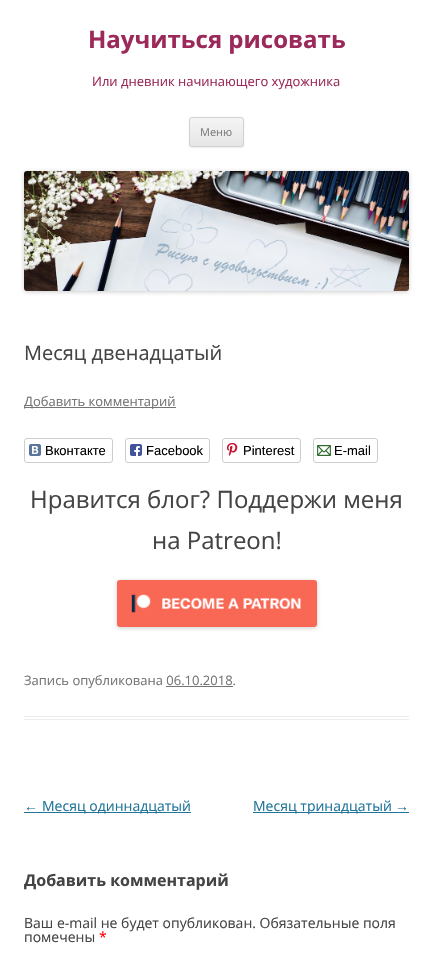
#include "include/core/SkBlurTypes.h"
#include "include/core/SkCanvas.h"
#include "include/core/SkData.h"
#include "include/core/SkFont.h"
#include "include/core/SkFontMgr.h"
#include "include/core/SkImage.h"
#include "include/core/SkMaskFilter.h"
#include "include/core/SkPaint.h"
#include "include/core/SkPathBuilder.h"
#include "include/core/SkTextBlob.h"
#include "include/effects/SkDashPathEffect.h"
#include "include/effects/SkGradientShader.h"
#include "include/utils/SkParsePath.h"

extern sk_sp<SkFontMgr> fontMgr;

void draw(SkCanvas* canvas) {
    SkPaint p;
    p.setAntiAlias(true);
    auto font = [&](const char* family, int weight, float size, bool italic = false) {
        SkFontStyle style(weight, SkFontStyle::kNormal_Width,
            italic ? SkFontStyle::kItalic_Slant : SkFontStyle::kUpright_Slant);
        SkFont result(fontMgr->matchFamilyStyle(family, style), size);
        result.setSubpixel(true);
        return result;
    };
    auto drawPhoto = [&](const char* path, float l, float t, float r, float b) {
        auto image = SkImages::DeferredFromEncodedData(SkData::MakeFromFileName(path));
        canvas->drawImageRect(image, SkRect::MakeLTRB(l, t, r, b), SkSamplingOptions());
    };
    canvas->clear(0xFFFFFFFF);
    auto font1 = font("Open Sans", 700, 24);
    p.setColor(0xFF9B2959);
    canvas->drawString("Научиться рисовать", 88, 48, font1, p);
    auto font2 = font("Open Sans", 400, 13);
    canvas->drawString("Или дневник начинающего художника", 92, 86, font2, p);
    p.setColor(0x1A404040);
    p.setMaskFilter(SkMaskFilter::MakeBlur(kNormal_SkBlurStyle, 1));
    canvas->drawRoundRect(SkRect::MakeLTRB(189, 118, 244, 148), 3, 3, p);
    p.setMaskFilter(nullptr);
    canvas->save();
    canvas->clipPath(SkPathBuilder().moveTo(192, 117).lineTo(241, 117).cubicTo(242.5f, 117, 244, 118.5f, 244, 120).lineTo(244, 144).cubicTo(244, 145.5f, 242.5f, 147, 241, 147).lineTo(192, 147).cubicTo(190.5f, 147, 189, 145.5f, 189, 144).lineTo(189, 120).cubicTo(189, 118.5f, 190.5f, 117, 192, 117).close().detach(), true);
    {
        const SkColor colors[] = {0xFFF4F4F4, 0xFFE6E6E6};
        const float stops[] = {0, 1};
        const SkPoint ends[] = {{217, 118}, {217, 146}};
        p.setShader(SkGradientShader::MakeLinear(ends, colors, stops, 2, SkTileMode::kClamp));
        p.setAlpha(255);
    }
    canvas->drawRect(SkRect::MakeLTRB(189, 118, 244, 146), p);
    canvas->restore();
    p.setStyle(SkPaint::kStroke_Style);
    p.setStrokeWidth(1);
    p.setShader(nullptr);
    p.setColor(0xFFD2D2D2);
    canvas->drawRoundRect(SkRect::MakeLTRB(189.5f, 117.5f, 243.5f, 146.5f), 2.5f, 2.5f, p);
    auto font3 = font("Open Sans", 400, 11);
    p.setStyle(SkPaint::kFill_Style);
    p.setColor(0xFF7C7C7C);
    canvas->drawString("Меню", 200, 136, font3, p);
    p.setColor(0x33000000);
    p.setMaskFilter(SkMaskFilter::MakeBlur(kNormal_SkBlurStyle, 2));
    canvas->drawRoundRect(SkRect::MakeLTRB(24, 172, 409, 292), 3, 3, p);
    p.setMaskFilter(nullptr);
    drawPhoto("media/1.png", 24, 171, 409, 291);
    p.setColor(0xFFEDEDED);
    canvas->drawRect(SkRect::MakeLTRB(24, 716, 409, 717), p);
    canvas->drawRect(SkRect::MakeLTRB(24, 719, 409, 720), p);
    auto font4 = font("Open Sans", 400, 20);
    p.setColor(0xFF444444);
    canvas->drawString("Месяц двенадцатый", 24, 360, font4, p);
    p.setColor(0xFF757575);
    canvas->drawRect(SkRect::MakeLTRB(24, 407, 176, 408), p);
    canvas->drawString("Добавить комментарий", 24, 406, font2, p);
    p.setStyle(SkPaint::kStroke_Style);
    p.setColor(0xFFCCCCCC);
    canvas->drawRoundRect(SkRect::MakeLTRB(24.5f, 438.5f, 112.5f, 462.5f), 2.5f, 2.5f, p);
    drawPhoto("media/2.png", 29, 444, 41, 456);
    auto font5 = font("Liberation Sans", 400, 13);
    p.setStyle(SkPaint::kFill_Style);
    p.setColor(0xFF000000);
    canvas->drawString("Вконтакте", 45, 455, font5, p);
    p.setStyle(SkPaint::kStroke_Style);
    p.setColor(0xFFCCCCCC);
    canvas->drawRoundRect(SkRect::MakeLTRB(125.5f, 438.5f, 209.5f, 462.5f), 2.5f, 2.5f, p);
    drawPhoto("media/3.png", 130, 444, 142, 456);
    p.setStyle(SkPaint::kFill_Style);
    p.setColor(0xFF000000);
    canvas->drawString("Facebook", 146, 455, font5, p);
    p.setStyle(SkPaint::kStroke_Style);
    p.setColor(0xFFCCCCCC);
    canvas->drawRoundRect(SkRect::MakeLTRB(222.5f, 438.5f, 300.5f, 462.5f), 2.5f, 2.5f, p);
    drawPhoto("media/4.png", 227, 443, 238, 456);
    p.setStyle(SkPaint::kFill_Style);
    p.setColor(0xFF000000);
    canvas->drawString("Pinterest", 243, 455, font5, p);
    p.setStyle(SkPaint::kStroke_Style);
    p.setColor(0xFFCCCCCC);
    canvas->drawRoundRect(SkRect::MakeLTRB(313.5f, 438.5f, 377.5f, 462.5f), 2.5f, 2.5f, p);
    drawPhoto("media/5.png", 317, 445, 331, 456);
    p.setStyle(SkPaint::kFill_Style);
    p.setColor(0xFF000000);
    canvas->drawString("E-mail", 334, 455, font5, p);
    auto font6 = font("Open Sans", 400, 24);
    p.setColor(0xFF444444);
    canvas->drawString("Нравится блог? Поддержи меня", 30, 508, font6, p);
    canvas->drawString("на Patreon!", 152, 549, font6, p);
    p.setColor(0x33000000);
    p.setMaskFilter(SkMaskFilter::MakeBlur(kNormal_SkBlurStyle, 2));
    canvas->drawRoundRect(SkRect::MakeLTRB(117, 581, 317, 628), 3, 3, p);
    p.setMaskFilter(nullptr);
    drawPhoto("media/6.png", 117, 580, 317, 627);
    p.setColor(0xFF757575);
    canvas->drawString("Запись опубликована 06.10.2018.", 24, 685, font2, p);
    canvas->drawRect(SkRect::MakeLTRB(166, 686, 233, 687), p);
    auto font7 = font("Liberation Sans", 400, 14);
    p.setColor(0xFF21759B);
    canvas->drawString("←", 24, 811, font7, p);
    canvas->drawRect(SkRect::MakeLTRB(24, 812, 191, 813), p);
    auto font8 = font("Open Sans", 400, 14);
    canvas->drawString("Месяц одиннадцатый", 42, 811, font8, p);
    canvas->drawRect(SkRect::MakeLTRB(253, 812, 409, 813), p);
    canvas->drawString("Месяц тринадцатый", 253, 811, font8, p);
    canvas->drawString("→", 395, 811, font7, p);
    auto font9 = font("Open Sans", 700, 16);
    p.setColor(0xFF444444);
    canvas->drawString("Добавить комментарий", 24, 886, font9, p);
    canvas->drawString("Ваш e-mail не будет опубликован. Обязательные поля", 24, 928, font8, p);
    canvas->drawString("помечены", 24, 942, font8, p);
    p.setColor(0xFFFF0000);
    canvas->drawString("*", 99, 942, font8, p);
}
